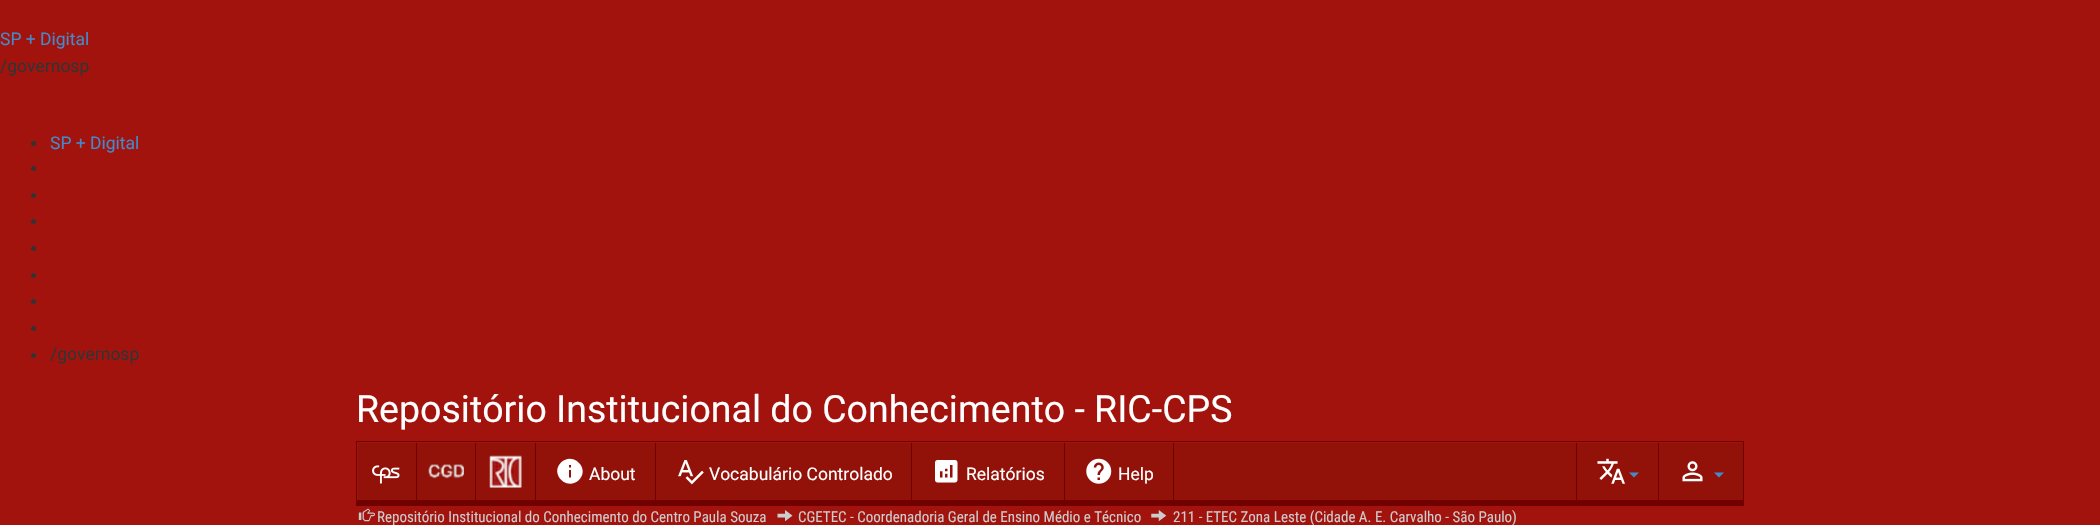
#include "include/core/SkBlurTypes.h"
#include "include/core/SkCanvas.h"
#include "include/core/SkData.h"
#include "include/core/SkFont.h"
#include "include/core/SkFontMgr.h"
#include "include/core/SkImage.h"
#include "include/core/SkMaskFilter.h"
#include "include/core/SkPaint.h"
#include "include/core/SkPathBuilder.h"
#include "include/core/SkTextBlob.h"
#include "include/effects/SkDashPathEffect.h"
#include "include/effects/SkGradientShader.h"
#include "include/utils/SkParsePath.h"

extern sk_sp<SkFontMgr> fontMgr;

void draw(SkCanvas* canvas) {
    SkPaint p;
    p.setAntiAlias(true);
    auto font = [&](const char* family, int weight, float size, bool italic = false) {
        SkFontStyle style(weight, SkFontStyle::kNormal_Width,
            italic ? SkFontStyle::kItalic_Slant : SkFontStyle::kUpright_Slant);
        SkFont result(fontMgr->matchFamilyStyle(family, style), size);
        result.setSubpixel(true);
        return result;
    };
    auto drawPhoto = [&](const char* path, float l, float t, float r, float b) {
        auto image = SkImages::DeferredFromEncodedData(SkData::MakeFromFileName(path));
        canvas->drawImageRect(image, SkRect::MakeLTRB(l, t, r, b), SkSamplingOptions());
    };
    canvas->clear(0xFFA3130D);
    auto font1 = font("Roboto", 400, 17.5f);
    p.setColor(0xFF428BCA);
    canvas->drawString("SP + Digital", 0, 45, font1, p);
    p.setColor(0xFF333333);
    canvas->drawString("/governosp", 0, 72, font1, p);
    canvas->drawCircle(33.5f, 143.5f, 2.5f, p);
    p.setColor(0xFF428BCA);
    canvas->drawString("SP + Digital", 50, 149, font1, p);
    p.setColor(0xFF333333);
    canvas->drawCircle(33.5f, 168.5f, 2.5f, p);
    canvas->drawCircle(33.5f, 195.5f, 2.5f, p);
    canvas->drawCircle(33.5f, 221.5f, 2.5f, p);
    canvas->drawCircle(33.5f, 248.5f, 2.5f, p);
    canvas->drawCircle(33.5f, 275.5f, 2.5f, p);
    canvas->drawCircle(33.5f, 301.5f, 2.5f, p);
    canvas->drawCircle(33.5f, 328.5f, 2.5f, p);
    canvas->drawCircle(33.5f, 355.5f, 2.5f, p);
    canvas->drawString("/governosp", 50, 360, font1, p);
    auto font2 = font("Roboto", 400, 37.5f);
    p.setColor(0xFFFFFFFF);
    canvas->drawString("Repositório Institucional do Conhecimento - RIC-CPS", 356, 422, font2, p);
    {
        const struct { float l, t, r, b; SkColor color; } items[] = {
            {358, 443, 1743, 500, 0xFF921209},
            {356, 441, 1744, 442, 0xFF710000},
            {1743, 441, 1744, 506, 0xFF710000},
            {356, 500, 1744, 506, 0xFF710000},
            {356, 441, 357, 506, 0xFF710000},
            {416, 443, 417, 501, 0xFF710000},
        };
        for (auto [l, t, r, b, color] : items) {
            p.setColor(color);
            canvas->drawRect(SkRect::MakeLTRB(l, t, r, b), p);
        }
    }
    drawPhoto("media/1.png", 372, 465, 400, 484);
    canvas->drawRect(SkRect::MakeLTRB(475, 443, 476, 500), p);
    drawPhoto("media/2.png", 428, 463, 464, 479);
    canvas->drawRect(SkRect::MakeLTRB(535, 443, 536, 501), p);
    drawPhoto("media/3.png", 489, 455, 522, 488);
    canvas->drawRect(SkRect::MakeLTRB(655, 443, 656, 500), p);
    p.setColor(0xFFFFFFFF);
    canvas->drawPath(SkPathBuilder().moveTo(571, 467.5f).lineTo(571, 465).lineTo(569, 465).lineTo(569, 467.5f).close().moveTo(571, 477.5f).lineTo(571, 470).lineTo(569, 470).lineTo(569, 477.5f).close().moveTo(561, 462.5f).cubicTo(573, 451, 590.5f, 468.5f, 579, 480).cubicTo(567, 491.5f, 549.5f, 474, 561, 462.5f).close().detach(), p);
    canvas->drawString("About", 589, 480, font1, p);
    p.setColor(0xFF710000);
    canvas->drawRect(SkRect::MakeLTRB(911, 443, 912, 500), p);
    drawPhoto("media/4.png", 678, 460, 704, 485);
    p.setColor(0xFFFFFFFF);
    canvas->drawString("Vocabulário Controlado", 709, 480, font1, p);
    p.setColor(0xFF710000);
    canvas->drawRect(SkRect::MakeLTRB(1064, 443, 1065, 500), p);
    drawPhoto("media/5.png", 935, 460, 958, 483);
    p.setColor(0xFFFFFFFF);
    canvas->drawString("Relatórios", 966, 480, font1, p);
    p.setColor(0xFF710000);
    canvas->drawRect(SkRect::MakeLTRB(1173, 443, 1174, 500), p);
    drawPhoto("media/6.png", 1086, 458, 1112, 484);
    p.setColor(0xFFFFFFFF);
    canvas->drawString("Help", 1118, 480, font1, p);
    p.setColor(0xFF710000);
    canvas->drawRect(SkRect::MakeLTRB(1576, 443, 1577, 500), p);
    drawPhoto("media/7.png", 1597, 458, 1625, 484);
    p.setColor(0xFF428BCA);
    canvas->drawPath(SkPathBuilder().moveTo(1629, 472.5f).lineTo(1639, 472.5f).lineTo(1634, 477.5f).close().detach(), p);
    p.setColor(0xFF710000);
    canvas->drawRect(SkRect::MakeLTRB(1658, 443, 1659, 500), p);
    drawPhoto("media/8.png", 1682, 461, 1703, 482);
    p.setColor(0xFF428BCA);
    canvas->drawPath(SkPathBuilder().moveTo(1714, 472.5f).lineTo(1724, 472.5f).lineTo(1719, 477.5f).close().detach(), p);
    drawPhoto("media/9.png", 358, 508, 375, 522);
    auto font3 = font("Roboto Condensed", 400, 15);
    p.setColor(0xFFCCCCCC);
    canvas->drawString("Repositório Institucional do Conhecimento do Centro Paula Souza", 377, 522, font3, p);
    drawPhoto("media/10.png", 777, 510, 793, 522);
    canvas->drawString("CGETEC - Coordenadoria Geral de Ensino Médio e Técnico", 798, 522, font3, p);
    drawPhoto("media/11.png", 1151, 510, 1167, 522);
    canvas->drawString("211 - ETEC Zona Leste (Cidade A. E. Carvalho - São Paulo)", 1173, 522, font3, p);
}
